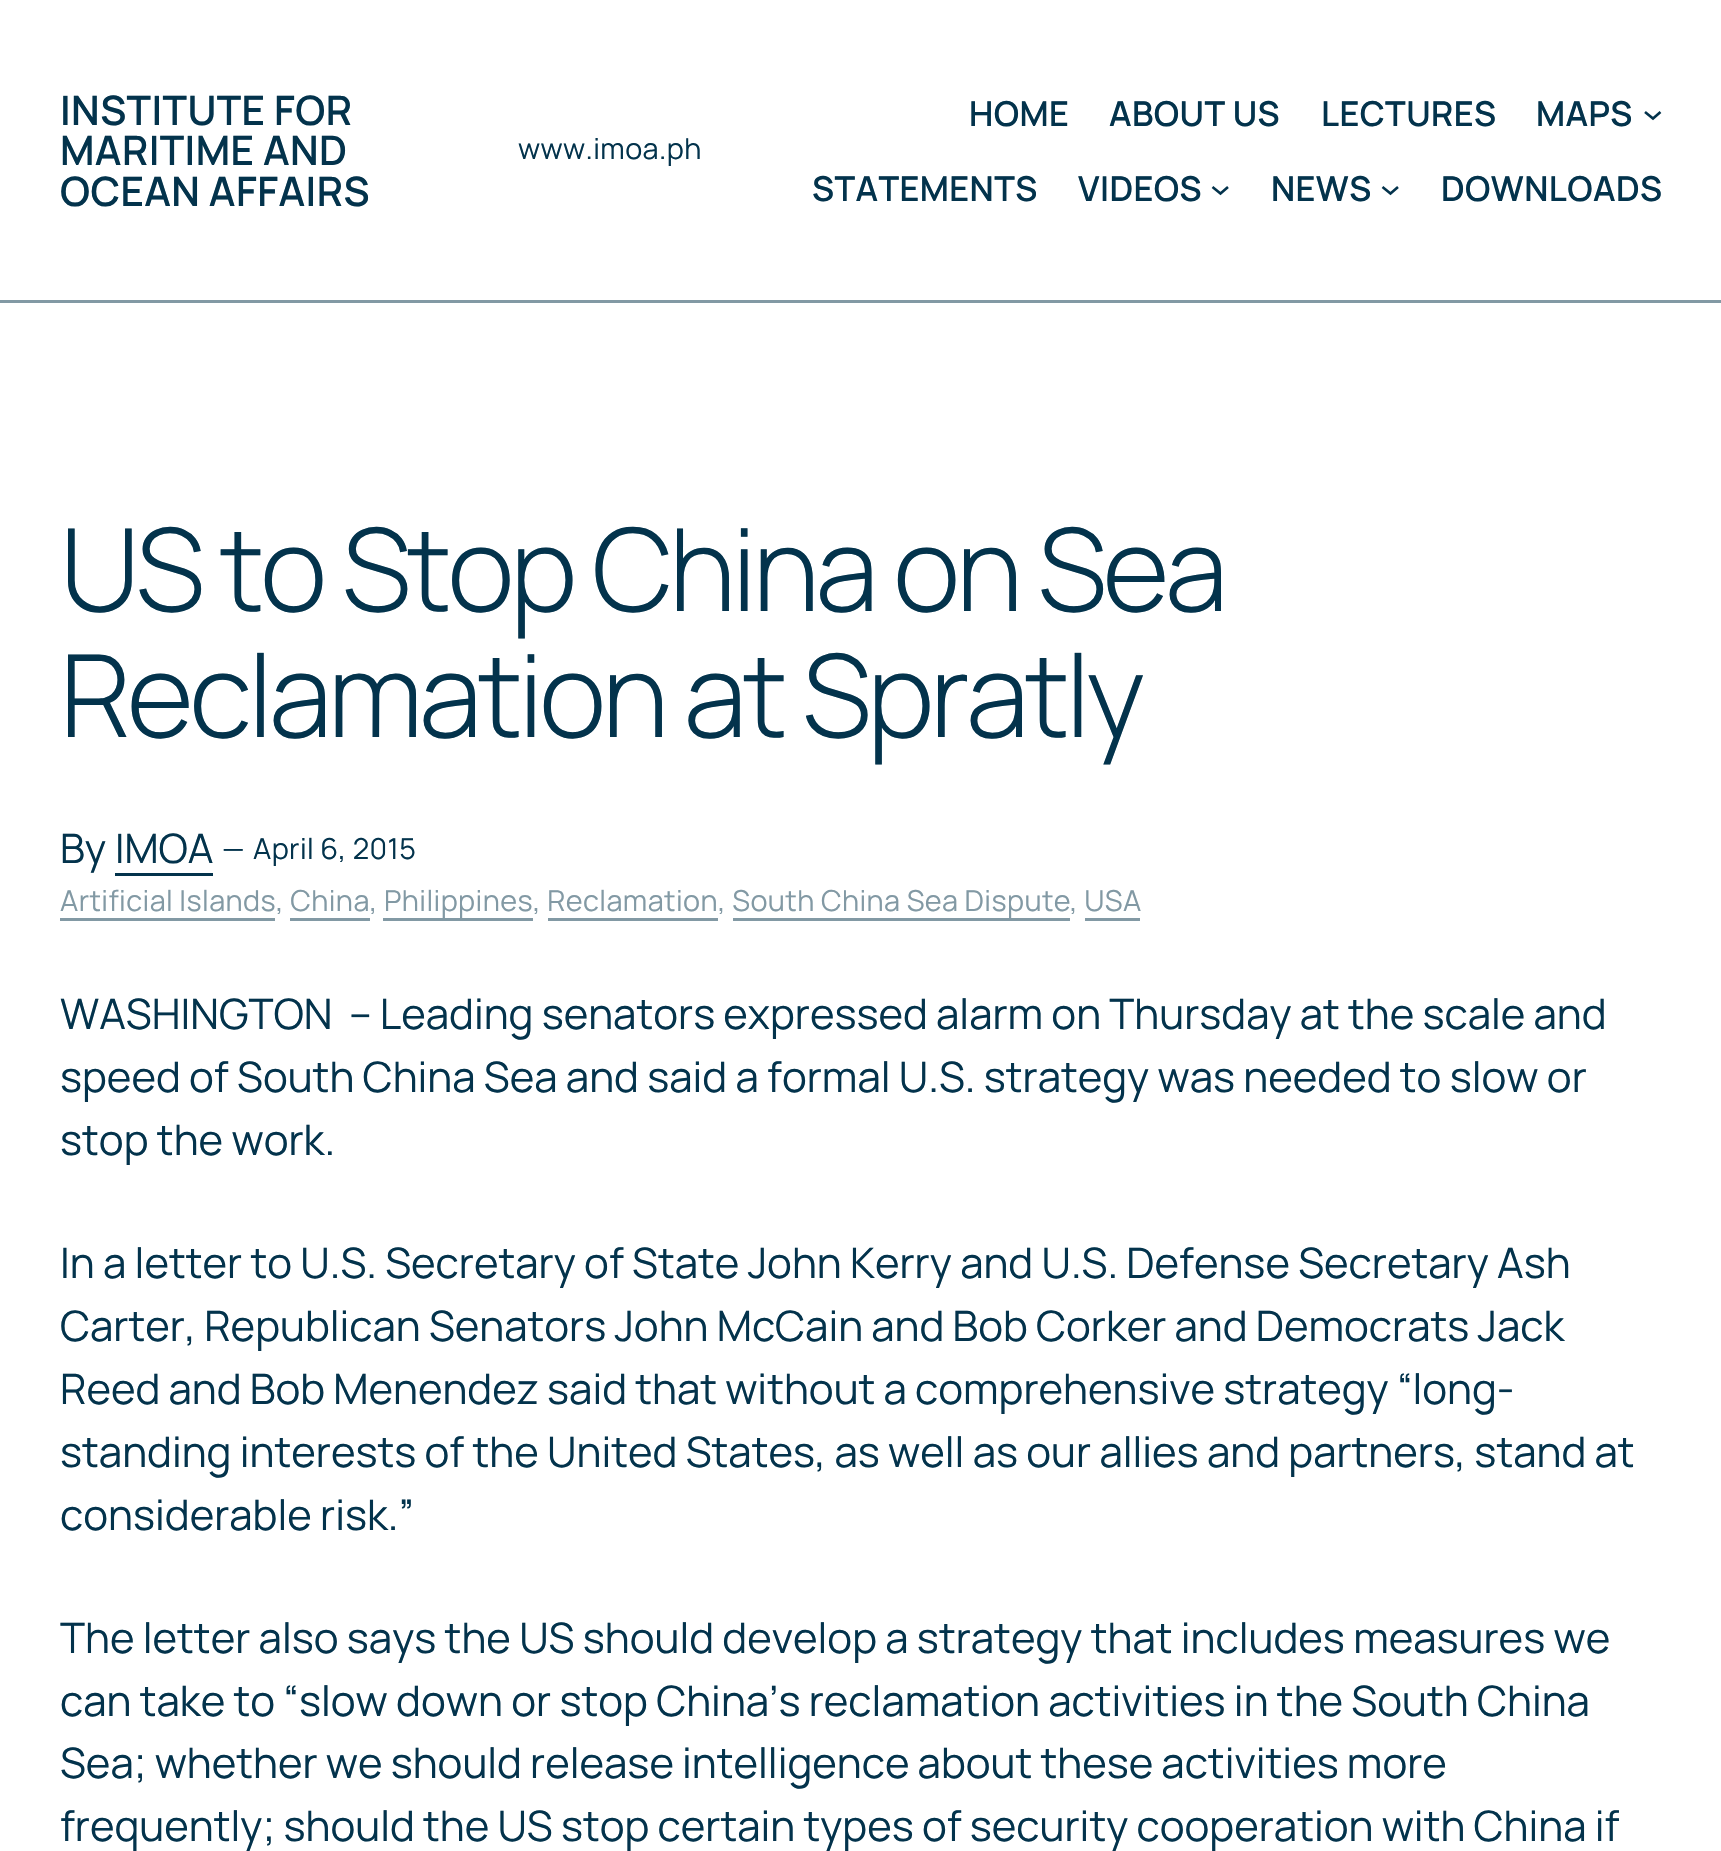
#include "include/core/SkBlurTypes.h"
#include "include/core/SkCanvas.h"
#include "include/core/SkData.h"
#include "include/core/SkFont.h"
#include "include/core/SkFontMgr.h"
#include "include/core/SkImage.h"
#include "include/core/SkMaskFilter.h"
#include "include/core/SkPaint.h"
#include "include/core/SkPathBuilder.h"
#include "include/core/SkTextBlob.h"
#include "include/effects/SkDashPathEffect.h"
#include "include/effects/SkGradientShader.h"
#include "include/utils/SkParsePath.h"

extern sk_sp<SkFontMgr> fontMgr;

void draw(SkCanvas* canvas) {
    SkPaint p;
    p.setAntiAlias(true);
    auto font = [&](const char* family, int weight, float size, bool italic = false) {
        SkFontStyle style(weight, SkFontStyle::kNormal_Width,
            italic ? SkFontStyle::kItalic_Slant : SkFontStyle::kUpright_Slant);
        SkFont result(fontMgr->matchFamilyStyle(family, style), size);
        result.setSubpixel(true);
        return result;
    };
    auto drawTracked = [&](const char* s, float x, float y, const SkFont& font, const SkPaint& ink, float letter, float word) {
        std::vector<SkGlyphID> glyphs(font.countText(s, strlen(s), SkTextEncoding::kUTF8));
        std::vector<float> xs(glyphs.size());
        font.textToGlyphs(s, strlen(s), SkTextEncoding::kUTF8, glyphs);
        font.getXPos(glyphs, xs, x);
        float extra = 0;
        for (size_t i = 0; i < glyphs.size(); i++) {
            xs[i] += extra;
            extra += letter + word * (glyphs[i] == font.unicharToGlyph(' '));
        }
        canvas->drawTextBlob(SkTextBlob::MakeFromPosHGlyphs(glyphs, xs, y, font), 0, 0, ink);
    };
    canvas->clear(0xFFFFFFFF);
    p.setColor(0xFF8299A4);
    canvas->drawRect(SkRect::MakeLTRB(0, 300, 1721, 303), p);
    auto font1 = font("Manrope", 600, 40.5f);
    p.setColor(0xFF03334C);
    {
        const struct { const char* s; float x, y; } items[] = {
            {"INSTITUTE FOR", 60, 125},
            {"MARITIME AND", 60, 165},
            {"OCEAN AFFAIRS", 60, 206},
        };
        for (auto [s, x, y] : items) {
            drawTracked(s, x, y, font1, p, 0.4f, 0);
        }
    }
    auto font2 = font("Manrope", 400, 28.8f);
    drawTracked("www.imoa.ph", 518, 159, font2, p, 0.4f, 0);
    auto font3 = font("Manrope", 600, 34.25f);
    {
        const struct { const char* s; float x, y; } items[] = {
            {"HOME", 969, 126},
            {"ABOUT US", 1109, 126},
            {"LECTURES", 1321, 126},
            {"MAPS", 1536, 126},
        };
        for (auto [s, x, y] : items) {
            drawTracked(s, x, y, font3, p, 0.4f, 0);
        }
    }
    p.setStyle(SkPaint::kStroke_Style);
    p.setStrokeWidth(2.6f);
    canvas->drawPath(SkPathBuilder().moveTo(1645, 112).lineTo(1653, 118.5f).lineTo(1660.5f, 112).detach(), p);
    p.setStyle(SkPaint::kFill_Style);
    drawTracked("STATEMENTS", 812, 201, font3, p, 0.4f, 0);
    drawTracked("VIDEOS", 1078, 201, font3, p, 0.4f, 0);
    p.setStyle(SkPaint::kStroke_Style);
    canvas->drawPath(SkPathBuilder().moveTo(1212.5f, 187).lineTo(1220.5f, 193.5f).lineTo(1228, 187).detach(), p);
    p.setStyle(SkPaint::kFill_Style);
    drawTracked("NEWS", 1271, 201, font3, p, 0.4f, 0);
    p.setStyle(SkPaint::kStroke_Style);
    canvas->drawPath(SkPathBuilder().moveTo(1382.5f, 187).lineTo(1390.5f, 193.5f).lineTo(1398, 187).detach(), p);
    p.setStyle(SkPaint::kFill_Style);
    drawTracked("DOWNLOADS", 1441, 201, font3, p, 0.4f, 0);
    auto font4 = font("Manrope", 300, 114.5f);
    drawTracked("US to Stop China on Sea", 60, 611, font4, p, -4, 0);
    drawTracked("Reclamation at Spratly", 60, 737, font4, p, -4, 0);
    auto font5 = font("Manrope", 400, 40.5f);
    canvas->drawString("By", 60, 863, font5, p);
    canvas->drawString("IMOA", 115, 863, font5, p);
    canvas->drawRect(SkRect::MakeLTRB(115, 873, 213, 876), p);
    canvas->drawString("—", 222, 859, font2, p);
    drawTracked("April 6, 2015", 253, 859, font2, p, 0.4f, 0);
    p.setColor(0xFF8299A4);
    drawTracked("Artificial Islands, China, Philippines, Reclamation, South China Sea Dispute", 60, 911, font2, p, 0.4f, 0);
    canvas->drawRect(SkRect::MakeLTRB(60, 918, 275, 921), p);
    drawTracked(", USA", 1070, 911, font2, p, 0.4f, 0);
    {
        const struct { float l, t, r, b; SkColor color; } items[] = {
            {290, 918, 370, 921, 0xFF8299A4},
            {383, 918, 533, 921, 0xFF8299A4},
            {548, 918, 718, 921, 0xFF8299A4},
            {733, 918, 1070, 921, 0xFF8299A4},
            {1085, 918, 1140, 921, 0xFF8299A4},
        };
        for (auto [l, t, r, b, color] : items) {
            p.setColor(color);
            canvas->drawRect(SkRect::MakeLTRB(l, t, r, b), p);
        }
    }
    auto font6 = font("Manrope", 400, 41.95f);
    p.setColor(0xFF03334C);
    drawTracked("WASHINGTON  – Leading senators expressed alarm on Thursday at the scale and", 60, 1029, font6, p, 0, -0.2f);
    drawTracked("speed of South China Sea and said a formal U.S. strategy was needed to slow or", 60, 1092, font6, p, 0, -0.1f);
    canvas->drawString("stop the work.", 60, 1155, font6, p);
    drawTracked("In a letter to U.S. Secretary of State John Kerry and U.S. Defense Secretary Ash", 60, 1278, font6, p, 0, -0.1f);
    drawTracked("Carter, Republican Senators John McCain and Bob Corker and Democrats Jack", 60, 1341, font6, p, 0, -0.25f);
    drawTracked("Reed and Bob Menendez said that without a comprehensive strategy “long-", 60, 1404, font6, p, 0, -0.25f);
    drawTracked("standing interests of the United States, as well as our allies and partners, stand at", 60, 1467, font6, p, 0, -0.1f);
    canvas->drawString("considerable risk.”", 60, 1530, font6, p);
    drawTracked("The letter also says the US should develop a strategy that includes measures we", 60, 1653, font6, p, 0, -0.1f);
    drawTracked("can take to “slow down or stop China’s reclamation activities in the South China", 60, 1716, font6, p, 0, -0.1f);
    drawTracked("Sea; whether we should release intelligence about these activities more", 60, 1778, font6, p, 0, -0.25f);
    drawTracked("frequently; should the US stop certain types of security cooperation with China if", 60, 1841, font6, p, 0, -0.2f);
}
